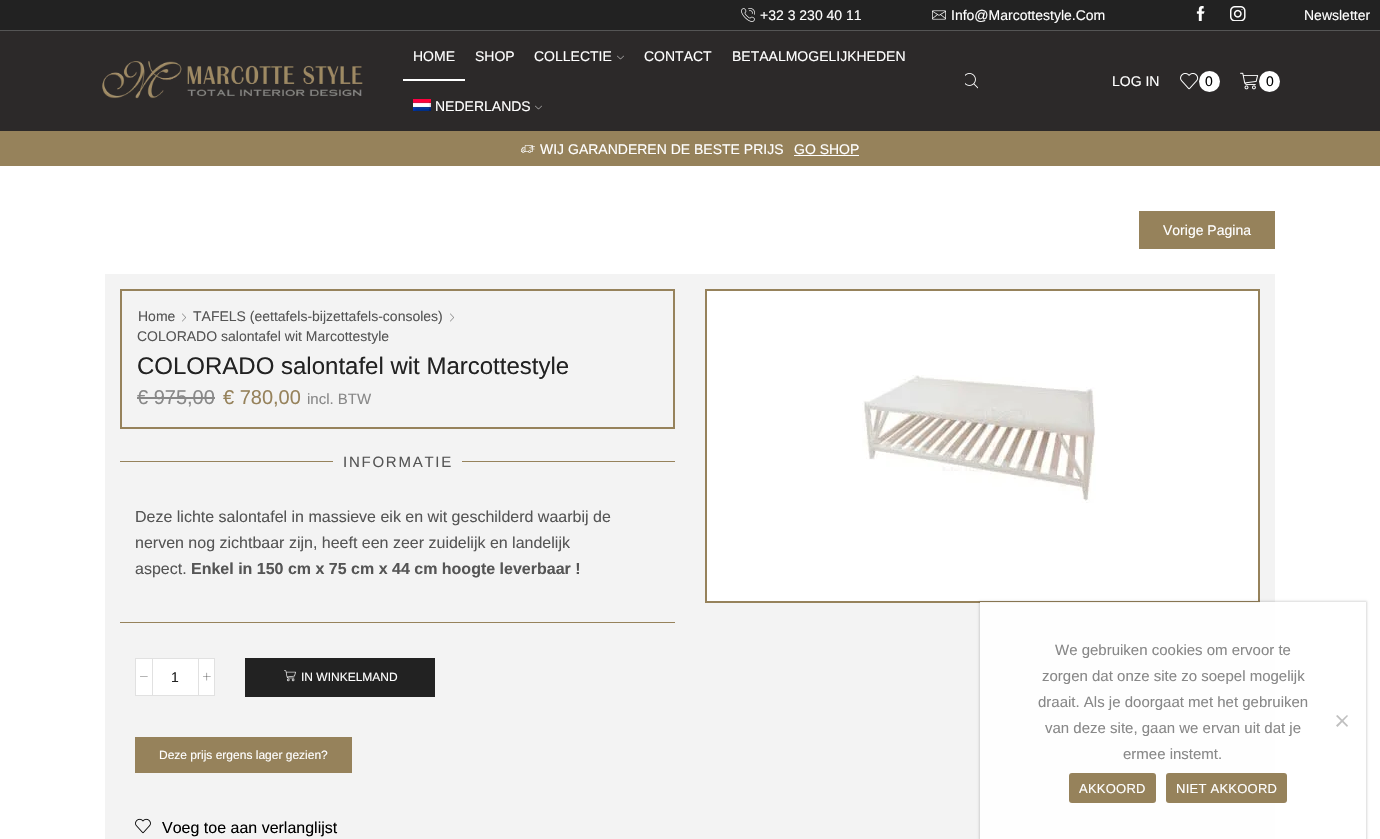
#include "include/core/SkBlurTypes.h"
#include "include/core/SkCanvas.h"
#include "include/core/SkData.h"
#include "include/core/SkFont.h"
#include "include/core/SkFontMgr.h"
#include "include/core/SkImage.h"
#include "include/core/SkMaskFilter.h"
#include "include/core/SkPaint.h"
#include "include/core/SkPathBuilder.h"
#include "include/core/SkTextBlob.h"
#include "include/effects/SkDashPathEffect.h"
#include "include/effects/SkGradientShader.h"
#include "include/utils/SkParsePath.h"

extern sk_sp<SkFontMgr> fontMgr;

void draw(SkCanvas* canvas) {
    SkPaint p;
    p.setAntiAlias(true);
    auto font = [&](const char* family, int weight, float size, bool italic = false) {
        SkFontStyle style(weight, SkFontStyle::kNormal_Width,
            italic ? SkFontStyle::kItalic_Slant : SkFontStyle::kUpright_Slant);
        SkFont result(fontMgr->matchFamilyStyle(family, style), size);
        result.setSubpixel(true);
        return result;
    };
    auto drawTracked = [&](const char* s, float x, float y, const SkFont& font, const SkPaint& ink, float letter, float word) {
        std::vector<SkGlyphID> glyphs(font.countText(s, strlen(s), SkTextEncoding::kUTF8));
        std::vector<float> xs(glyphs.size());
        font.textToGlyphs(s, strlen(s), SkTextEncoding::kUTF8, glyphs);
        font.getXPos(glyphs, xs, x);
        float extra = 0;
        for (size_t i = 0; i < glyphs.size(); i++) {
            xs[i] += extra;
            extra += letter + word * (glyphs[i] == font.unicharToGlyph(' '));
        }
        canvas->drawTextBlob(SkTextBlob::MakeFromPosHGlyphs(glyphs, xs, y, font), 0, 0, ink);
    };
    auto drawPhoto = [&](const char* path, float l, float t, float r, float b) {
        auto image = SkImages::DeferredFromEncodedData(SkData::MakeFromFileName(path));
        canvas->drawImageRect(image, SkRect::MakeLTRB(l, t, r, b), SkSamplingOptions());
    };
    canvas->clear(0xFFFFFFFF);
    p.setColor(0xFF222222);
    canvas->drawRect(SkRect::MakeLTRB(0, 0, 1380, 30), p);
    p.setColor(0xFF555555);
    canvas->drawRect(SkRect::MakeLTRB(0, 30, 1380, 31), p);
    drawPhoto("media/1.png", 741, 8, 755, 22);
    auto font1 = font("Liberation Sans", 400, 14);
    p.setColor(0xFFFFFFFF);
    canvas->drawString("+32 3 230 40 11", 760, 20, font1, p);
    drawPhoto("media/2.png", 932, 10, 946, 20);
    canvas->drawString("Info@Marcottestyle.Com", 951, 20, font1, p);
    drawPhoto("media/3.png", 1196, 6, 1205, 21);
    drawPhoto("media/4.png", 1230, 6, 1246, 21);
    canvas->drawString("Newsletter", 1304, 20, font1, p);
    p.setColor(0xFF2C2929);
    canvas->drawRect(SkRect::MakeLTRB(0, 31, 1380, 131), p);
    drawPhoto("media/5.png", 102, 61, 363, 99);
    p.setColor(0xFFFFFFFF);
    canvas->drawString("HOME", 413, 61, font1, p);
    canvas->drawRect(SkRect::MakeLTRB(403, 79, 465, 81), p);
    canvas->drawString("SHOP", 475, 61, font1, p);
    canvas->drawString("COLLECTIE", 534, 61, font1, p);
    drawPhoto("media/6.png", 617, 55, 624, 60);
    canvas->drawString("CONTACT", 644, 61, font1, p);
    canvas->drawString("BETAALMOGELIJKHEDEN", 732, 61, font1, p);
    drawPhoto("media/7.png", 413, 99, 431, 111);
    canvas->drawString("NEDERLANDS", 435, 111, font1, p);
    drawPhoto("media/6.png", 535, 105, 542, 110);
    drawPhoto("media/8.png", 965, 73, 978, 89);
    canvas->drawString("LOG IN", 1112, 86, font1, p);
    drawPhoto("media/9.png", 1180, 73, 1199, 90);
    canvas->drawCircle(1209.5f, 81.5f, 10.5f, p);
    p.setColor(0xFF000000);
    canvas->drawString("0", 1205, 86, font1, p);
    drawPhoto("media/10.png", 1240, 72, 1259, 90);
    p.setColor(0xFFFFFFFF);
    canvas->drawCircle(1269.5f, 81.5f, 10.5f, p);
    p.setColor(0xFF000000);
    canvas->drawString("0", 1266, 86, font1, p);
    p.setColor(0xFF96825B);
    canvas->drawRect(SkRect::MakeLTRB(0, 131, 1380, 166), p);
    drawPhoto("media/11.png", 521, 145, 535, 153);
    p.setColor(0xFFFFFFFF);
    canvas->drawString("WIJ GARANDEREN DE BESTE PRIJS", 540, 154, font1, p);
    canvas->drawString("GO SHOP", 794, 154, font1, p);
    canvas->drawRect(SkRect::MakeLTRB(794, 155, 859, 156), p);
    p.setColor(0xFF96825B);
    canvas->drawRect(SkRect::MakeLTRB(1139, 211, 1275, 249), p);
    p.setColor(0xFFFFFFFF);
    canvas->drawString("Vorige Pagina", 1163, 235, font1, p);
    p.setColor(0xFFF3F3F3);
    canvas->drawRect(SkRect::MakeLTRB(105, 274, 1275, 839), p);
    p.setStyle(SkPaint::kStroke_Style);
    p.setStrokeWidth(2);
    p.setColor(0xFF96825B);
    canvas->drawRect(SkRect::MakeLTRB(121, 290, 674, 428), p);
    p.setStyle(SkPaint::kFill_Style);
    p.setColor(0xFF555555);
    canvas->drawString("Home", 138, 321, font1, p);
    drawPhoto("media/12.png", 182, 313, 186, 322);
    canvas->drawString("TAFELS (eettafels-bijzettafels-consoles)", 193, 321, font1, p);
    drawPhoto("media/12.png", 450, 313, 454, 322);
    canvas->drawString("COLORADO salontafel wit Marcottestyle", 137, 341, font1, p);
    auto font2 = font("Liberation Sans", 400, 24);
    p.setColor(0xFF222222);
    canvas->drawString("COLORADO salontafel wit Marcottestyle", 137, 374, font2, p);
    auto font3 = font("Liberation Sans", 400, 20);
    p.setColor(0xFF888888);
    canvas->drawString("€ 975,00", 137, 404, font3, p);
    canvas->drawRect(SkRect::MakeLTRB(137, 397, 215, 399), p);
    p.setColor(0xFF96825B);
    canvas->drawString("€ 780,00", 223, 404, font3, p);
    auto font4 = font("Liberation Sans", 400, 15);
    p.setColor(0xFF888888);
    canvas->drawString("incl. BTW", 307, 404, font4, p);
    p.setColor(0xFF96825B);
    canvas->drawRect(SkRect::MakeLTRB(120, 461, 333, 462), p);
    p.setColor(0xFF555555);
    drawTracked("INFORMATIE", 343, 467, font4, p, 1.75f, 0);
    p.setColor(0xFF96825B);
    canvas->drawRect(SkRect::MakeLTRB(462, 461, 675, 462), p);
    auto font5 = font("Liberation Sans", 400, 16);
    p.setColor(0xFF555555);
    {
        const struct { const char* s; float x, y; } items[] = {
            {"Deze lichte salontafel in massieve eik en wit geschilderd waarbij de", 135, 522},
            {"nerven nog zichtbaar zijn, heeft een zeer zuidelijk en landelijk", 135, 548},
            {"aspect.", 135, 574},
        };
        for (auto [s, x, y] : items) {
            canvas->drawString(s, x, y, font5, p);
        }
    }
    auto font6 = font("Liberation Sans", 700, 16);
    canvas->drawString("Enkel in 150 cm x 75 cm x 44 cm hoogte leverbaar !", 191, 574, font6, p);
    p.setColor(0xFF96825B);
    canvas->drawRect(SkRect::MakeLTRB(120, 622, 675, 623), p);
    p.setColor(0xFFFFFFFF);
    canvas->drawRect(SkRect::MakeLTRB(135.5f, 658.5f, 152.5f, 695.5f), p);
    p.setStyle(SkPaint::kStroke_Style);
    p.setStrokeWidth(1);
    p.setColor(0xFFE1E1E1);
    canvas->drawRect(SkRect::MakeLTRB(135.5f, 658.5f, 152.5f, 695.5f), p);
    drawPhoto("media/13.png", 140, 676, 148, 677);
    p.setStyle(SkPaint::kFill_Style);
    {
        const struct { float l, t, r, b; SkColor color; } items[] = {
            {153, 659, 198, 695, 0xFFFFFFFF},
            {153, 658, 198, 659, 0xFFE1E1E1},
            {153, 695, 198, 696, 0xFFE1E1E1},
        };
        for (auto [l, t, r, b, color] : items) {
            p.setColor(color);
            canvas->drawRect(SkRect::MakeLTRB(l, t, r, b), p);
        }
    }
    p.setColor(0xFF222222);
    canvas->drawString("1", 171, 682, font1, p);
    p.setColor(0xFFFFFFFF);
    canvas->drawRect(SkRect::MakeLTRB(198.5f, 658.5f, 214.5f, 695.5f), p);
    p.setStyle(SkPaint::kStroke_Style);
    p.setColor(0xFFE1E1E1);
    canvas->drawRect(SkRect::MakeLTRB(198.5f, 658.5f, 214.5f, 695.5f), p);
    drawPhoto("media/14.png", 203, 672, 211, 681);
    p.setStyle(SkPaint::kFill_Style);
    p.setColor(0xFF222222);
    canvas->drawRect(SkRect::MakeLTRB(245, 658, 435, 697), p);
    drawPhoto("media/15.png", 284, 670, 296, 682);
    auto font7 = font("Liberation Sans", 400, 12);
    p.setColor(0xFFFFFFFF);
    canvas->drawString("IN WINKELMAND", 301, 681, font7, p);
    p.setColor(0xFF96825B);
    canvas->drawRect(SkRect::MakeLTRB(135, 737, 352, 773), p);
    p.setColor(0xFFFFFFFF);
    canvas->drawString("Deze prijs ergens lager gezien?", 159, 759, font7, p);
    drawPhoto("media/16.png", 135, 818, 151, 834);
    p.setColor(0xFF000000);
    canvas->drawString("Voeg toe aan verlanglijst", 162, 833, font5, p);
    p.setColor(0xFFFFFFFF);
    canvas->drawRect(SkRect::MakeLTRB(706, 290, 1259, 602), p);
    p.setStyle(SkPaint::kStroke_Style);
    p.setStrokeWidth(2);
    p.setColor(0xFF96825B);
    canvas->drawRect(SkRect::MakeLTRB(706, 290, 1259, 602), p);
    drawPhoto("media/17.png", 862, 375, 1096, 503);
    canvas->save();
    canvas->clipPath(SkPathBuilder(SkPathFillType::kEvenOdd).moveTo(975, 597).lineTo(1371, 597).lineTo(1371, 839).lineTo(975, 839).close().moveTo(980, 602).lineTo(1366, 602).lineTo(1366, 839).lineTo(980, 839).close().detach(), true);
    p.setStyle(SkPaint::kFill_Style);
    p.setColor(0x26000000);
    p.setMaskFilter(SkMaskFilter::MakeBlur(kNormal_SkBlurStyle, 1));
    canvas->drawRect(SkRect::MakeLTRB(979, 601, 1367, 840), p);
    p.setMaskFilter(nullptr);
    canvas->restore();
    p.setColor(0xE6FFFFFF);
    canvas->drawRect(SkRect::MakeLTRB(980, 602, 1275, 839), p);
    p.setColor(0xFF888888);
    {
        const struct { const char* s; float x, y; } items[] = {
            {"We gebruiken cookies om ervoor te", 1055, 655},
            {"zorgen dat onze site zo soepel mogelijk", 1042, 681},
            {"draait. Als je doorgaat met het gebruiken", 1038, 707},
            {"van deze site, gaan we ervan uit dat je", 1045, 733},
            {"ermee instemt.", 1123, 759},
        };
        for (auto [s, x, y] : items) {
            canvas->drawString(s, x, y, font4, p);
        }
    }
    p.setColor(0xFFC0C0C0);
    canvas->drawPath(SkPathBuilder().moveTo(1347, 715).lineTo(1348, 716).lineTo(1337.5f, 727).lineTo(1336, 725.5f).close().detach(), p);
    canvas->drawPath(SkPathBuilder().moveTo(1336, 716).lineTo(1337.5f, 715).lineTo(1348, 725.5f).lineTo(1347, 727).close().detach(), p);
    p.setColor(0xFF96825B);
    canvas->drawRoundRect(SkRect::MakeLTRB(1069, 773, 1156, 803), 3, 3, p);
    auto font8 = font("Liberation Sans", 400, 13);
    p.setColor(0xFFFFFFFF);
    drawTracked("AKKOORD", 1079, 793, font8, p, 0.25f, 0);
    p.setColor(0xFF96825B);
    canvas->drawRoundRect(SkRect::MakeLTRB(1166, 773, 1287, 803), 3, 3, p);
    p.setColor(0xFFFFFFFF);
    drawTracked("NIET AKKOORD", 1176, 793, font8, p, 0.25f, 0);
}
